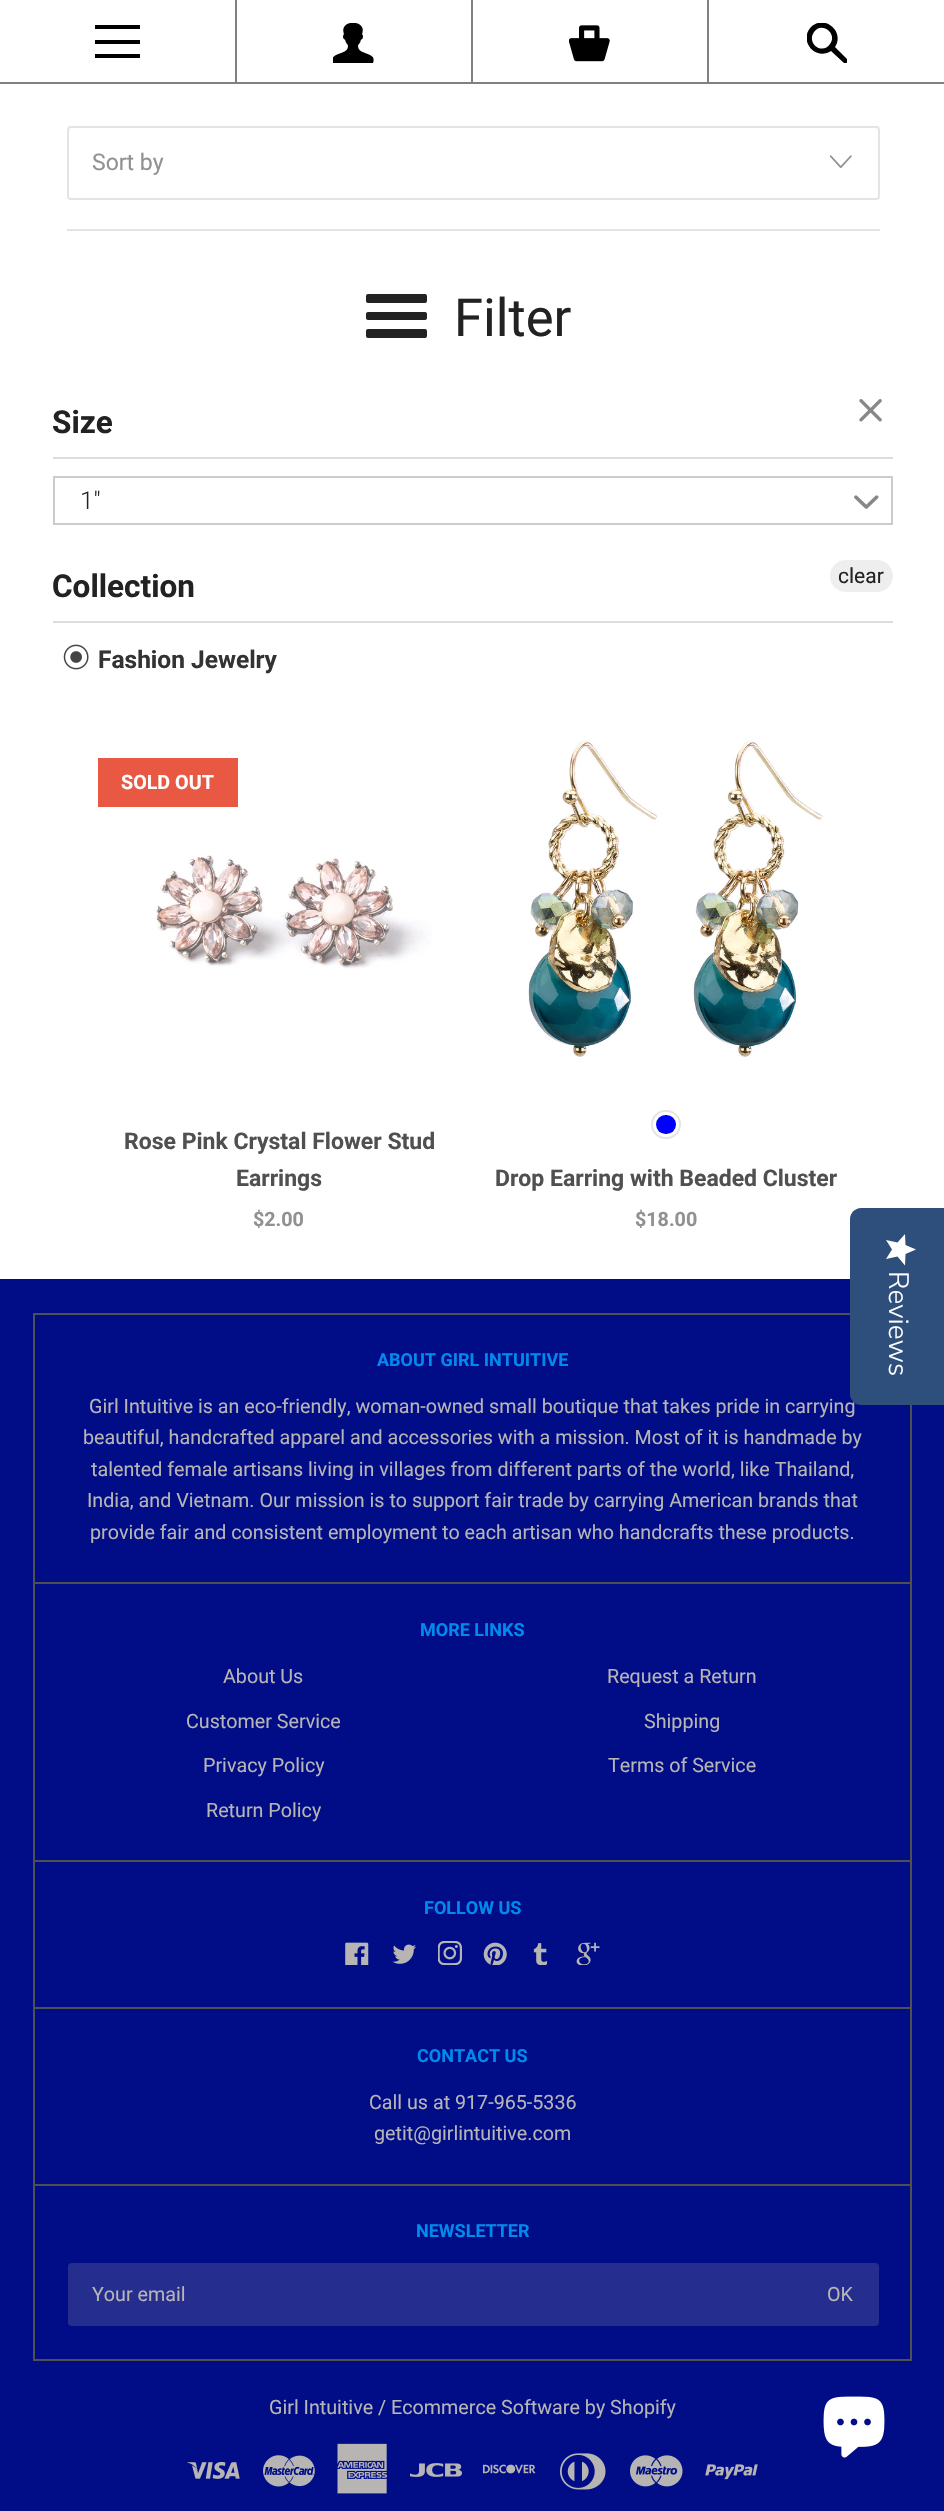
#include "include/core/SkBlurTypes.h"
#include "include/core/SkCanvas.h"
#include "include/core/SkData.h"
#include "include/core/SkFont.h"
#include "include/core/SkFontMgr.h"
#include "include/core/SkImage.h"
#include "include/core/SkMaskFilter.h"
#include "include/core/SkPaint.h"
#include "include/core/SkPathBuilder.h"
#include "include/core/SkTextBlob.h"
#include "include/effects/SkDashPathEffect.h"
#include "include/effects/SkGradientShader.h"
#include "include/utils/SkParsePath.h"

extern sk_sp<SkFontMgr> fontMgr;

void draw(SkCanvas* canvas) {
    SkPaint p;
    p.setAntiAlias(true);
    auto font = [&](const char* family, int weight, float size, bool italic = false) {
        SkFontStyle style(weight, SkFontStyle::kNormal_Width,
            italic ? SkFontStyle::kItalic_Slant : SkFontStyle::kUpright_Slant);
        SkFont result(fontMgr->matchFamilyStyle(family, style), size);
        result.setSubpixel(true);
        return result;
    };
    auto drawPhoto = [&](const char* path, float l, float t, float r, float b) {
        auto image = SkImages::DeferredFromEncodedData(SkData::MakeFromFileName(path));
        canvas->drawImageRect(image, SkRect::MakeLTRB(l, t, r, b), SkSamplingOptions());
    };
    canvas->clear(0xFFFFFFFF);
    {
        const struct { float l, t, r, b; SkColor color; } items[] = {
            {0, 82, 944, 84, 0xFF808080},
            {235, 0, 237, 82, 0xFF808080},
            {95, 40, 140, 44, 0xFF000000},
            {95, 25, 140, 29, 0xFF000000},
            {95, 54, 140, 58, 0xFF000000},
            {471, 0, 473, 82, 0xFF808080},
        };
        for (auto [l, t, r, b, color] : items) {
            p.setColor(color);
            canvas->drawRect(SkRect::MakeLTRB(l, t, r, b), p);
        }
    }
    drawPhoto("media/1.png", 333, 23, 374, 63);
    canvas->drawRect(SkRect::MakeLTRB(707, 0, 709, 82), p);
    drawPhoto("media/2.png", 569, 25, 610, 62);
    canvas->save();
    canvas->clipRect(SkRect::MakeLTRB(807, 23, 847, 63));
    p.setColor(0xFF000000);
    canvas->drawPath(SkPathBuilder().moveTo(847, 59).lineTo(835, 47).cubicTo(845, 32, 825, 14, 811, 27).cubicTo(798, 41, 816, 61, 831, 51).lineTo(844, 63).cubicTo(846, 65, 849, 61, 847, 59).close().moveTo(830, 44).cubicTo(823, 55, 806, 44, 814, 32).cubicTo(821, 21, 838, 33, 830, 44).close().detach(), p);
    canvas->restore();
    p.setColor(0xFFE4E4E4);
    canvas->drawRect(SkRect::MakeLTRB(67, 229, 880, 231), p);
    p.setStyle(SkPaint::kStroke_Style);
    p.setStrokeWidth(2);
    canvas->drawRoundRect(SkRect::MakeLTRB(68, 127, 879, 199), 3, 3, p);
    auto font1 = font("Roboto", 400, 23);
    p.setStyle(SkPaint::kFill_Style);
    p.setColor(0xFF919191);
    canvas->drawString("Sort by", 92, 170, font1, p);
    drawPhoto("media/3.png", 829, 155, 852, 169);
    p.setColor(0xFF222222);
    canvas->drawRoundRect(SkRect::MakeLTRB(366, 312, 427, 320), 2, 2, p);
    canvas->drawRoundRect(SkRect::MakeLTRB(366, 294, 427, 303), 2, 2, p);
    canvas->drawRoundRect(SkRect::MakeLTRB(366, 329, 427, 338), 2, 2, p);
    auto font2 = font("Roboto", 400, 52.5f);
    canvas->drawString("Filter", 454, 336, font2, p);
    p.setColor(0xFFDDDDDD);
    canvas->drawRect(SkRect::MakeLTRB(53, 457, 893, 459), p);
    auto font3 = font("Roboto", 700, 31.5f);
    p.setColor(0xFF222222);
    canvas->drawString("Size", 52, 433, font3, p);
    drawPhoto("media/4.png", 859, 399, 882, 422);
    p.setStyle(SkPaint::kStroke_Style);
    p.setColor(0xFFCCCCCC);
    canvas->drawRect(SkRect::MakeLTRB(54, 477, 892, 524), p);
    auto font4 = font("Roboto", 300, 24.5f);
    p.setStyle(SkPaint::kFill_Style);
    p.setColor(0xFF222222);
    canvas->drawString("1\"", 80, 509, font4, p);
    drawPhoto("media/5.png", 854, 495, 879, 509);
    p.setColor(0xFFEEEEEE);
    canvas->drawRoundRect(SkRect::MakeLTRB(830, 560, 893, 592), 16, 16, p);
    auto font5 = font("Roboto", 400, 21);
    p.setColor(0xFF222222);
    canvas->drawString("clear", 838, 583, font5, p);
    drawPhoto("media/6.png", 63, 644, 89, 670);
    auto font6 = font("Roboto", 700, 24.5f);
    p.setColor(0xFF333333);
    canvas->drawString("Fashion Jewelry", 98, 668, font6, p);
    p.setColor(0xFFDDDDDD);
    canvas->drawRect(SkRect::MakeLTRB(53, 621, 893, 623), p);
    p.setColor(0xFF222222);
    canvas->drawString("Collection", 52, 597, font3, p);
    p.setColor(0xFFE95842);
    canvas->drawRect(SkRect::MakeLTRB(98, 758, 238, 807), p);
    auto font7 = font("Roboto", 700, 19.7f);
    p.setColor(0xFFFFFFFF);
    canvas->drawString("SOLD OUT", 121, 789, font7, p);
    drawPhoto("media/7.png", 155, 854, 433, 992);
    auto font8 = font("Roboto", 700, 23);
    p.setColor(0xFF505050);
    canvas->drawString("Rose Pink Crystal Flower Stud", 124, 1149, font8, p);
    canvas->drawString("Earrings", 236, 1186, font8, p);
    p.setColor(0xFF919191);
    canvas->drawString("$2.00", 253, 1226, font7, p);
    drawPhoto("media/8.png", 528, 738, 823, 1060);
    p.setStyle(SkPaint::kStroke_Style);
    p.setColor(0xFFE4E4E4);
    canvas->drawRoundRect(SkRect::MakeLTRB(652, 1111, 680, 1138), 13.5f, 13.5f, p);
    p.setStyle(SkPaint::kFill_Style);
    p.setColor(0xFF0000FF);
    canvas->drawRoundRect(SkRect::MakeLTRB(656, 1115, 676, 1134), 9.5f, 9.5f, p);
    p.setColor(0xFF505050);
    canvas->drawString("Drop Earring with Beaded Cluster", 495, 1186, font8, p);
    p.setColor(0xFF919191);
    canvas->drawString("$18.00", 635, 1226, font7, p);
    p.setColor(0xFF000D86);
    canvas->drawRect(SkRect::MakeLTRB(0, 1279, 944, 2511), p);
    p.setStyle(SkPaint::kStroke_Style);
    p.setColor(0xFF505050);
    canvas->drawRect(SkRect::MakeLTRB(34, 1314, 911, 1583), p);
    auto font9 = font("Roboto", 700, 18);
    p.setStyle(SkPaint::kFill_Style);
    p.setColor(0xFF018AEE);
    canvas->drawString("ABOUT GIRL INTUITIVE", 377, 1366, font9, p);
    auto font10 = font("Roboto", 400, 19.7f);
    p.setColor(0xFFB7B4B4);
    {
        const struct { const char* s; float x, y; } items[] = {
            {"Girl Intuitive is an eco-friendly, woman-owned small boutique that takes pride in carrying", 89, 1413},
            {"beautiful, handcrafted apparel and accessories with a mission. Most of it is handmade by", 83, 1444},
            {"talented female artisans living in villages from different parts of the world, like Thailand,", 91, 1476},
            {"India, and Vietnam. Our mission is to support fair trade by carrying American brands that", 87, 1507},
            {"provide fair and consistent employment to each artisan who handcrafts these products.", 90, 1539},
        };
        for (auto [s, x, y] : items) {
            canvas->drawString(s, x, y, font10, p);
        }
    }
    {
        const struct { float l, t, r, b; SkColor color; } items[] = {
            {910, 1584, 912, 2361, 0xFF505050},
            {33, 1860, 912, 1862, 0xFF505050},
            {33, 1584, 35, 1862, 0xFF505050},
        };
        for (auto [l, t, r, b, color] : items) {
            p.setColor(color);
            canvas->drawRect(SkRect::MakeLTRB(l, t, r, b), p);
        }
    }
    p.setColor(0xFF018AEE);
    canvas->drawString("MORE LINKS", 420, 1636, font9, p);
    p.setColor(0xFFB7B4B4);
    {
        const struct { const char* s; float x, y; } items[] = {
            {"About Us", 223, 1683},
            {"Request a Return", 607, 1683},
            {"Customer Service", 186, 1728},
            {"Shipping", 644, 1728},
            {"Privacy Policy", 203, 1772},
            {"Terms of Service", 608, 1772},
            {"Return Policy", 206, 1817},
        };
        for (auto [s, x, y] : items) {
            canvas->drawString(s, x, y, font10, p);
        }
    }
    p.setColor(0xFF505050);
    canvas->drawRect(SkRect::MakeLTRB(33, 2007, 912, 2009), p);
    canvas->drawRect(SkRect::MakeLTRB(33, 1862, 35, 2009), p);
    p.setColor(0xFF018AEE);
    canvas->drawString("FOLLOW US", 424, 1914, font9, p);
    drawPhoto("media/9.png", 345, 1942, 369, 1965);
    drawPhoto("media/10.png", 392, 1944, 416, 1964);
    drawPhoto("media/11.png", 438, 1941, 462, 1965);
    drawPhoto("media/12.png", 483, 1942, 507, 1965);
    drawPhoto("media/13.png", 533, 1943, 548, 1965);
    drawPhoto("media/14.png", 576, 1942, 600, 1965);
    p.setColor(0xFF505050);
    canvas->drawRect(SkRect::MakeLTRB(33, 2184, 912, 2186), p);
    canvas->drawRect(SkRect::MakeLTRB(33, 2009, 35, 2186), p);
    p.setColor(0xFF018AEE);
    canvas->drawString("CONTACT US", 417, 2062, font9, p);
    p.setColor(0xFFB7B4B4);
    canvas->drawString("Call us at 917-965-5336", 369, 2109, font10, p);
    canvas->drawString("getit@girlintuitive.com", 374, 2140, font10, p);
    p.setColor(0xFF505050);
    canvas->drawRect(SkRect::MakeLTRB(33, 2359, 912, 2361), p);
    canvas->drawRect(SkRect::MakeLTRB(33, 2186, 35, 2361), p);
    p.setColor(0xFF018AEE);
    canvas->drawString("NEWSLETTER", 416, 2237, font9, p);
    p.setColor(0xFF252E8F);
    canvas->drawRoundRect(SkRect::MakeLTRB(68, 2263, 879, 2326), 4, 4, p);
    p.setColor(0xFFB7B4B4);
    {
        const struct { const char* s; float x, y; } items[] = {
            {"Your email", 92, 2301},
            {"OK", 827, 2301},
            {"Girl Intuitive / Ecommerce Software by Shopify", 269, 2414},
        };
        for (auto [s, x, y] : items) {
            canvas->drawString(s, x, y, font10, p);
        }
    }
    drawPhoto("media/15.png", 187, 2461, 240, 2479);
    drawPhoto("media/16.png", 263, 2455, 315, 2487);
    drawPhoto("media/17.png", 337, 2443, 387, 2494);
    drawPhoto("media/18.png", 410, 2463, 462, 2477);
    drawPhoto("media/19.png", 483, 2464, 536, 2474);
    drawPhoto("media/20.png", 560, 2453, 606, 2490);
    drawPhoto("media/21.png", 630, 2455, 683, 2487);
    drawPhoto("media/22.png", 705, 2464, 758, 2480);
    p.setColor(0xFF2E4F7C);
    canvas->drawPath(SkPathBuilder().moveTo(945, 1208).lineTo(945, 1405).lineTo(861, 1405).cubicTo(855, 1405, 850, 1400, 850, 1394).lineTo(850, 1219).cubicTo(850, 1213, 855, 1208, 861, 1208).close().detach(), p);
    {
        const SkColor colors[] = {0xFFFFFFFF, 0xFFEAEAEA};
        const float stops[] = {1, 1};
        const SkPoint ends[] = {{916, 1234}, {916, 1265}};
        p.setShader(SkGradientShader::MakeLinear(ends, colors, stops, 2, SkTileMode::kClamp));
        p.setAlpha(255);
    }
    canvas->drawPath(SkPathBuilder().moveTo(892, 1249.5f).lineTo(886, 1259).lineTo(897.5f, 1256.5f).lineTo(905, 1265.5f).lineTo(905.5f, 1254).lineTo(916, 1249.5f).lineTo(905.5f, 1245).lineTo(905, 1234).lineTo(897.5f, 1242.5f).lineTo(886, 1240).close().detach(), p);
    auto font11 = font("Nunito Sans", 300, 28);
    p.setShader(nullptr);
    p.setColor(0xFFFFFFFF);
    canvas->save();
    canvas->rotate(90, 889, 1271);
    canvas->drawString("Reviews", 889, 1271, font11, p);
    canvas->restore();
    drawPhoto("media/23.png", 823, 2396, 885, 2458);
}
